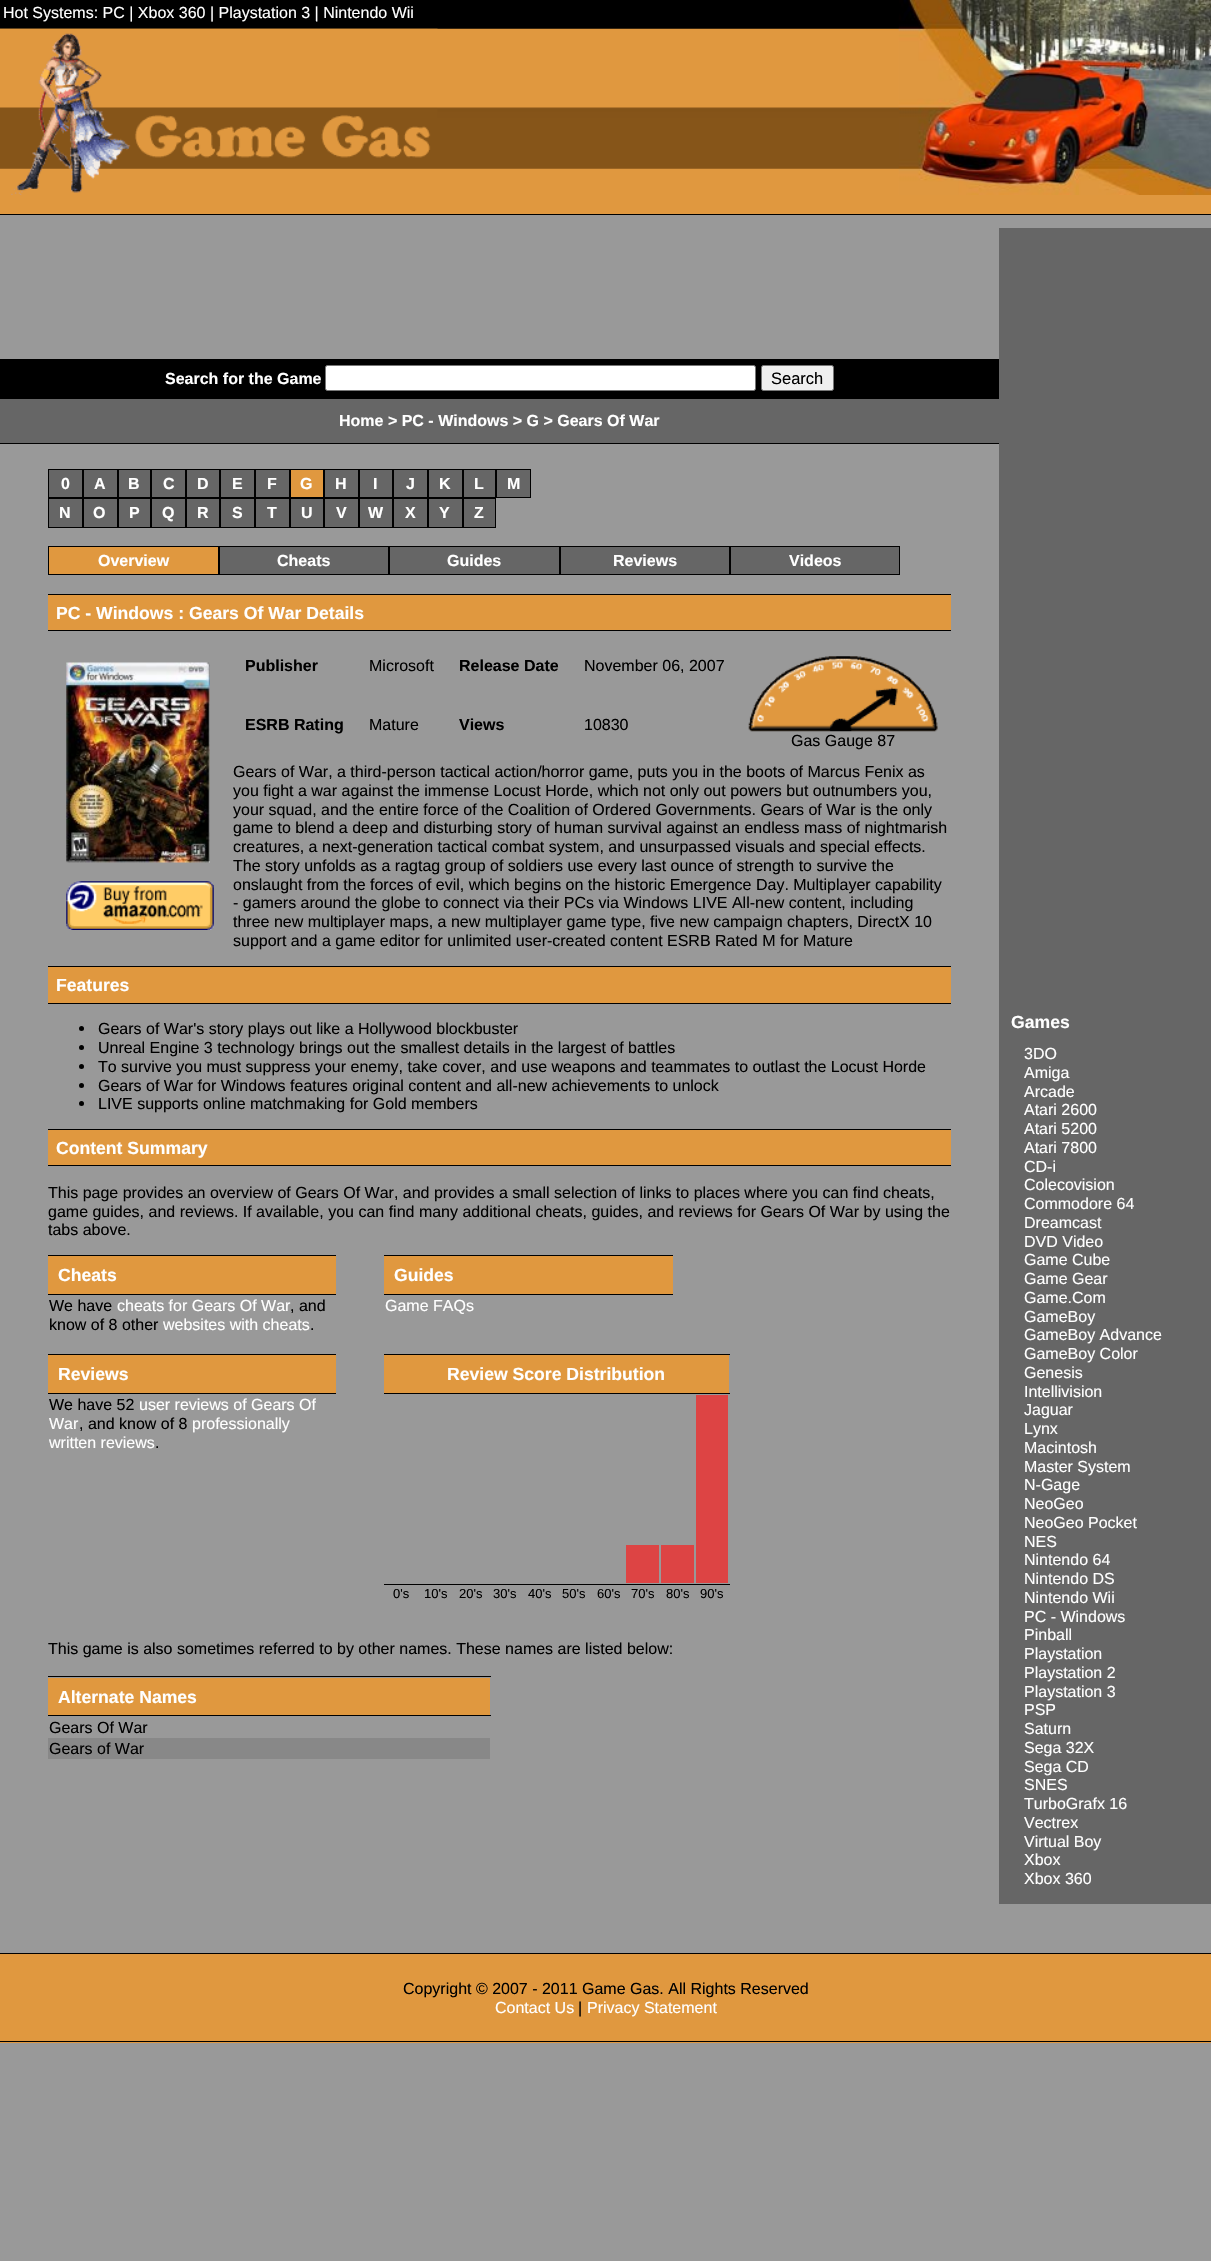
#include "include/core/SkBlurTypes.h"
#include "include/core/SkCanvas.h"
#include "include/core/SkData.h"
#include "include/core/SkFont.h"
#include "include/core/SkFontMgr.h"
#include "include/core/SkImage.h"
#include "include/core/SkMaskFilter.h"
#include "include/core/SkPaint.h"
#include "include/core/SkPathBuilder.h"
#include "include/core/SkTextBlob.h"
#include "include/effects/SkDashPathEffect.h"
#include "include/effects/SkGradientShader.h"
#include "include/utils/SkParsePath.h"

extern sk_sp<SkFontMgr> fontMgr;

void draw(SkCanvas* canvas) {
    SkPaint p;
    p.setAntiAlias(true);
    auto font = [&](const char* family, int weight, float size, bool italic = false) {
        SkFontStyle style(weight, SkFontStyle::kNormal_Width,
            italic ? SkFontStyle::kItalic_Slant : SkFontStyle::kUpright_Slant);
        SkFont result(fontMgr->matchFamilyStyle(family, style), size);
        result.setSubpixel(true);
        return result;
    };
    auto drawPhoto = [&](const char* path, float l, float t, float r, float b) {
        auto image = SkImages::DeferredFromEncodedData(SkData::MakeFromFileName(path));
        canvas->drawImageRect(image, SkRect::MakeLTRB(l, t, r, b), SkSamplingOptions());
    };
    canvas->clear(0xFF999999);
    p.setColor(0xFFE0983F);
    canvas->drawRect(SkRect::MakeLTRB(0, 169, 1211, 214), p);
    drawPhoto("media/1.png", 0, 0, 899, 169);
    p.setColor(0xFF000000);
    canvas->drawRect(SkRect::MakeLTRB(0, 214, 1211, 215), p);
    drawPhoto("media/2.png", 0, 28, 438, 195);
    auto font1 = font("Liberation Sans", 400, 16);
    p.setColor(0xFFFFFFFF);
    canvas->drawString("Hot Systems: PC | Xbox 360 | Playstation 3 | Nintendo Wii", 3, 18, font1, p);
    drawPhoto("media/3.png", 898, 0, 1211, 195);
    p.setColor(0xFF000000);
    canvas->drawRect(SkRect::MakeLTRB(0, 359, 999, 399), p);
    auto font2 = font("Liberation Sans", 700, 16);
    p.setColor(0xFFFFFFFF);
    canvas->drawString("Search for the Game", 165, 384, font2, p);
    canvas->drawRoundRect(SkRect::MakeLTRB(325.5f, 365.5f, 755.5f, 390.5f), 2, 2, p);
    p.setStyle(SkPaint::kStroke_Style);
    p.setStrokeWidth(1);
    p.setColor(0xFF767676);
    canvas->drawRoundRect(SkRect::MakeLTRB(325.5f, 365.5f, 755.5f, 390.5f), 2, 2, p);
    p.setStyle(SkPaint::kFill_Style);
    p.setColor(0xFFEFEFEF);
    canvas->drawRoundRect(SkRect::MakeLTRB(761.5f, 365.5f, 833.5f, 390.5f), 2, 2, p);
    p.setStyle(SkPaint::kStroke_Style);
    p.setColor(0xFF767676);
    canvas->drawRoundRect(SkRect::MakeLTRB(761.5f, 365.5f, 833.5f, 390.5f), 2, 2, p);
    auto font3 = font("Liberation Sans", 400, 16.5f);
    p.setStyle(SkPaint::kFill_Style);
    p.setColor(0xFF000000);
    canvas->drawString("Search", 771, 384, font3, p);
    p.setColor(0xFF666666);
    canvas->drawRect(SkRect::MakeLTRB(0, 399, 999, 443), p);
    p.setColor(0xFF000000);
    canvas->drawRect(SkRect::MakeLTRB(0, 443, 999, 444), p);
    p.setColor(0xFFFFFFFF);
    canvas->drawString("Home > PC - Windows > G > Gears Of War", 339, 426, font2, p);
    p.setColor(0xFF666666);
    canvas->drawRect(SkRect::MakeLTRB(48.5f, 469.5f, 82.5f, 497.5f), p);
    p.setStyle(SkPaint::kStroke_Style);
    p.setColor(0xFF000000);
    canvas->drawRect(SkRect::MakeLTRB(48.5f, 469.5f, 82.5f, 497.5f), p);
    p.setStyle(SkPaint::kFill_Style);
    p.setColor(0xFFFFFFFF);
    canvas->drawString("0", 61, 489, font2, p);
    p.setColor(0xFF666666);
    canvas->drawRect(SkRect::MakeLTRB(83.5f, 469.5f, 117.5f, 497.5f), p);
    p.setStyle(SkPaint::kStroke_Style);
    p.setColor(0xFF000000);
    canvas->drawRect(SkRect::MakeLTRB(83.5f, 469.5f, 117.5f, 497.5f), p);
    p.setStyle(SkPaint::kFill_Style);
    p.setColor(0xFFFFFFFF);
    canvas->drawString("A", 94, 489, font2, p);
    p.setColor(0xFF666666);
    canvas->drawRect(SkRect::MakeLTRB(118.5f, 469.5f, 150.5f, 497.5f), p);
    p.setStyle(SkPaint::kStroke_Style);
    p.setColor(0xFF000000);
    canvas->drawRect(SkRect::MakeLTRB(118.5f, 469.5f, 150.5f, 497.5f), p);
    p.setStyle(SkPaint::kFill_Style);
    p.setColor(0xFFFFFFFF);
    canvas->drawString("B", 128, 489, font2, p);
    p.setColor(0xFF666666);
    canvas->drawRect(SkRect::MakeLTRB(151.5f, 469.5f, 185.5f, 497.5f), p);
    p.setStyle(SkPaint::kStroke_Style);
    p.setColor(0xFF000000);
    canvas->drawRect(SkRect::MakeLTRB(151.5f, 469.5f, 185.5f, 497.5f), p);
    p.setStyle(SkPaint::kFill_Style);
    p.setColor(0xFFFFFFFF);
    canvas->drawString("C", 163, 489, font2, p);
    p.setColor(0xFF666666);
    canvas->drawRect(SkRect::MakeLTRB(186.5f, 469.5f, 219.5f, 497.5f), p);
    p.setStyle(SkPaint::kStroke_Style);
    p.setColor(0xFF000000);
    canvas->drawRect(SkRect::MakeLTRB(186.5f, 469.5f, 219.5f, 497.5f), p);
    p.setStyle(SkPaint::kFill_Style);
    p.setColor(0xFFFFFFFF);
    canvas->drawString("D", 197, 489, font2, p);
    p.setColor(0xFF666666);
    canvas->drawRect(SkRect::MakeLTRB(220.5f, 469.5f, 254.5f, 497.5f), p);
    p.setStyle(SkPaint::kStroke_Style);
    p.setColor(0xFF000000);
    canvas->drawRect(SkRect::MakeLTRB(220.5f, 469.5f, 254.5f, 497.5f), p);
    p.setStyle(SkPaint::kFill_Style);
    p.setColor(0xFFFFFFFF);
    canvas->drawString("E", 232, 489, font2, p);
    p.setColor(0xFF666666);
    canvas->drawRect(SkRect::MakeLTRB(255.5f, 469.5f, 289.5f, 497.5f), p);
    p.setStyle(SkPaint::kStroke_Style);
    p.setColor(0xFF000000);
    canvas->drawRect(SkRect::MakeLTRB(255.5f, 469.5f, 289.5f, 497.5f), p);
    p.setStyle(SkPaint::kFill_Style);
    p.setColor(0xFFFFFFFF);
    canvas->drawString("F", 267, 489, font2, p);
    p.setColor(0xFFE0983F);
    canvas->drawRect(SkRect::MakeLTRB(290.5f, 469.5f, 323.5f, 497.5f), p);
    p.setStyle(SkPaint::kStroke_Style);
    p.setColor(0xFF000000);
    canvas->drawRect(SkRect::MakeLTRB(290.5f, 469.5f, 323.5f, 497.5f), p);
    p.setStyle(SkPaint::kFill_Style);
    p.setColor(0xFFFFFFFF);
    canvas->drawString("G", 300, 489, font2, p);
    p.setColor(0xFF666666);
    canvas->drawRect(SkRect::MakeLTRB(324.5f, 469.5f, 358.5f, 497.5f), p);
    p.setStyle(SkPaint::kStroke_Style);
    p.setColor(0xFF000000);
    canvas->drawRect(SkRect::MakeLTRB(324.5f, 469.5f, 358.5f, 497.5f), p);
    p.setStyle(SkPaint::kFill_Style);
    p.setColor(0xFFFFFFFF);
    canvas->drawString("H", 335, 489, font2, p);
    p.setColor(0xFF666666);
    canvas->drawRect(SkRect::MakeLTRB(359.5f, 469.5f, 392.5f, 497.5f), p);
    p.setStyle(SkPaint::kStroke_Style);
    p.setColor(0xFF000000);
    canvas->drawRect(SkRect::MakeLTRB(359.5f, 469.5f, 392.5f, 497.5f), p);
    p.setStyle(SkPaint::kFill_Style);
    p.setColor(0xFFFFFFFF);
    canvas->drawString("I", 373, 489, font2, p);
    p.setColor(0xFF666666);
    canvas->drawRect(SkRect::MakeLTRB(393.5f, 469.5f, 427.5f, 497.5f), p);
    p.setStyle(SkPaint::kStroke_Style);
    p.setColor(0xFF000000);
    canvas->drawRect(SkRect::MakeLTRB(393.5f, 469.5f, 427.5f, 497.5f), p);
    p.setStyle(SkPaint::kFill_Style);
    p.setColor(0xFFFFFFFF);
    canvas->drawString("J", 406, 489, font2, p);
    p.setColor(0xFF666666);
    canvas->drawRect(SkRect::MakeLTRB(428.5f, 469.5f, 462.5f, 497.5f), p);
    p.setStyle(SkPaint::kStroke_Style);
    p.setColor(0xFF000000);
    canvas->drawRect(SkRect::MakeLTRB(428.5f, 469.5f, 462.5f, 497.5f), p);
    p.setStyle(SkPaint::kFill_Style);
    p.setColor(0xFFFFFFFF);
    canvas->drawString("K", 439, 489, font2, p);
    p.setColor(0xFF666666);
    canvas->drawRect(SkRect::MakeLTRB(463.5f, 469.5f, 495.5f, 497.5f), p);
    p.setStyle(SkPaint::kStroke_Style);
    p.setColor(0xFF000000);
    canvas->drawRect(SkRect::MakeLTRB(463.5f, 469.5f, 495.5f, 497.5f), p);
    p.setStyle(SkPaint::kFill_Style);
    p.setColor(0xFFFFFFFF);
    canvas->drawString("L", 474, 489, font2, p);
    p.setColor(0xFF666666);
    canvas->drawRect(SkRect::MakeLTRB(496.5f, 469.5f, 530.5f, 497.5f), p);
    p.setStyle(SkPaint::kStroke_Style);
    p.setColor(0xFF000000);
    canvas->drawRect(SkRect::MakeLTRB(496.5f, 469.5f, 530.5f, 497.5f), p);
    p.setStyle(SkPaint::kFill_Style);
    p.setColor(0xFFFFFFFF);
    canvas->drawString("M", 507, 489, font2, p);
    p.setColor(0xFF666666);
    canvas->drawRect(SkRect::MakeLTRB(48.5f, 498.5f, 82.5f, 527.5f), p);
    p.setStyle(SkPaint::kStroke_Style);
    p.setColor(0xFF000000);
    canvas->drawRect(SkRect::MakeLTRB(48.5f, 498.5f, 82.5f, 527.5f), p);
    p.setStyle(SkPaint::kFill_Style);
    p.setColor(0xFFFFFFFF);
    canvas->drawString("N", 59, 518, font2, p);
    p.setColor(0xFF666666);
    canvas->drawRect(SkRect::MakeLTRB(83.5f, 498.5f, 117.5f, 527.5f), p);
    p.setStyle(SkPaint::kStroke_Style);
    p.setColor(0xFF000000);
    canvas->drawRect(SkRect::MakeLTRB(83.5f, 498.5f, 117.5f, 527.5f), p);
    p.setStyle(SkPaint::kFill_Style);
    p.setColor(0xFFFFFFFF);
    canvas->drawString("O", 93, 518, font2, p);
    p.setColor(0xFF666666);
    canvas->drawRect(SkRect::MakeLTRB(118.5f, 498.5f, 150.5f, 527.5f), p);
    p.setStyle(SkPaint::kStroke_Style);
    p.setColor(0xFF000000);
    canvas->drawRect(SkRect::MakeLTRB(118.5f, 498.5f, 150.5f, 527.5f), p);
    p.setStyle(SkPaint::kFill_Style);
    p.setColor(0xFFFFFFFF);
    canvas->drawString("P", 129, 518, font2, p);
    p.setColor(0xFF666666);
    canvas->drawRect(SkRect::MakeLTRB(151.5f, 498.5f, 185.5f, 527.5f), p);
    p.setStyle(SkPaint::kStroke_Style);
    p.setColor(0xFF000000);
    canvas->drawRect(SkRect::MakeLTRB(151.5f, 498.5f, 185.5f, 527.5f), p);
    p.setStyle(SkPaint::kFill_Style);
    p.setColor(0xFFFFFFFF);
    canvas->drawString("Q", 162, 518, font2, p);
    p.setColor(0xFF666666);
    canvas->drawRect(SkRect::MakeLTRB(186.5f, 498.5f, 219.5f, 527.5f), p);
    p.setStyle(SkPaint::kStroke_Style);
    p.setColor(0xFF000000);
    canvas->drawRect(SkRect::MakeLTRB(186.5f, 498.5f, 219.5f, 527.5f), p);
    p.setStyle(SkPaint::kFill_Style);
    p.setColor(0xFFFFFFFF);
    canvas->drawString("R", 197, 518, font2, p);
    p.setColor(0xFF666666);
    canvas->drawRect(SkRect::MakeLTRB(220.5f, 498.5f, 254.5f, 527.5f), p);
    p.setStyle(SkPaint::kStroke_Style);
    p.setColor(0xFF000000);
    canvas->drawRect(SkRect::MakeLTRB(220.5f, 498.5f, 254.5f, 527.5f), p);
    p.setStyle(SkPaint::kFill_Style);
    p.setColor(0xFFFFFFFF);
    canvas->drawString("S", 232, 518, font2, p);
    p.setColor(0xFF666666);
    canvas->drawRect(SkRect::MakeLTRB(255.5f, 498.5f, 289.5f, 527.5f), p);
    p.setStyle(SkPaint::kStroke_Style);
    p.setColor(0xFF000000);
    canvas->drawRect(SkRect::MakeLTRB(255.5f, 498.5f, 289.5f, 527.5f), p);
    p.setStyle(SkPaint::kFill_Style);
    p.setColor(0xFFFFFFFF);
    canvas->drawString("T", 267, 518, font2, p);
    p.setColor(0xFF666666);
    canvas->drawRect(SkRect::MakeLTRB(290.5f, 498.5f, 323.5f, 527.5f), p);
    p.setStyle(SkPaint::kStroke_Style);
    p.setColor(0xFF000000);
    canvas->drawRect(SkRect::MakeLTRB(290.5f, 498.5f, 323.5f, 527.5f), p);
    p.setStyle(SkPaint::kFill_Style);
    p.setColor(0xFFFFFFFF);
    canvas->drawString("U", 301, 518, font2, p);
    p.setColor(0xFF666666);
    canvas->drawRect(SkRect::MakeLTRB(324.5f, 498.5f, 358.5f, 527.5f), p);
    p.setStyle(SkPaint::kStroke_Style);
    p.setColor(0xFF000000);
    canvas->drawRect(SkRect::MakeLTRB(324.5f, 498.5f, 358.5f, 527.5f), p);
    p.setStyle(SkPaint::kFill_Style);
    p.setColor(0xFFFFFFFF);
    canvas->drawString("V", 336, 518, font2, p);
    p.setColor(0xFF666666);
    canvas->drawRect(SkRect::MakeLTRB(359.5f, 498.5f, 392.5f, 527.5f), p);
    p.setStyle(SkPaint::kStroke_Style);
    p.setColor(0xFF000000);
    canvas->drawRect(SkRect::MakeLTRB(359.5f, 498.5f, 392.5f, 527.5f), p);
    p.setStyle(SkPaint::kFill_Style);
    p.setColor(0xFFFFFFFF);
    canvas->drawString("W", 368, 518, font2, p);
    p.setColor(0xFF666666);
    canvas->drawRect(SkRect::MakeLTRB(393.5f, 498.5f, 427.5f, 527.5f), p);
    p.setStyle(SkPaint::kStroke_Style);
    p.setColor(0xFF000000);
    canvas->drawRect(SkRect::MakeLTRB(393.5f, 498.5f, 427.5f, 527.5f), p);
    p.setStyle(SkPaint::kFill_Style);
    p.setColor(0xFFFFFFFF);
    canvas->drawString("X", 405, 518, font2, p);
    p.setColor(0xFF666666);
    canvas->drawRect(SkRect::MakeLTRB(428.5f, 498.5f, 462.5f, 527.5f), p);
    p.setStyle(SkPaint::kStroke_Style);
    p.setColor(0xFF000000);
    canvas->drawRect(SkRect::MakeLTRB(428.5f, 498.5f, 462.5f, 527.5f), p);
    p.setStyle(SkPaint::kFill_Style);
    p.setColor(0xFFFFFFFF);
    canvas->drawString("Y", 439, 518, font2, p);
    p.setColor(0xFF666666);
    canvas->drawRect(SkRect::MakeLTRB(463.5f, 498.5f, 495.5f, 527.5f), p);
    p.setStyle(SkPaint::kStroke_Style);
    p.setColor(0xFF000000);
    canvas->drawRect(SkRect::MakeLTRB(463.5f, 498.5f, 495.5f, 527.5f), p);
    p.setStyle(SkPaint::kFill_Style);
    p.setColor(0xFFFFFFFF);
    canvas->drawString("Z", 474, 518, font2, p);
    p.setColor(0xFFE0983F);
    canvas->drawRect(SkRect::MakeLTRB(48.5f, 546.5f, 218.5f, 574.5f), p);
    p.setStyle(SkPaint::kStroke_Style);
    p.setColor(0xFF000000);
    canvas->drawRect(SkRect::MakeLTRB(48.5f, 546.5f, 218.5f, 574.5f), p);
    p.setStyle(SkPaint::kFill_Style);
    p.setColor(0xFFFFFFFF);
    canvas->drawString("Overview", 98, 566, font2, p);
    p.setColor(0xFF666666);
    canvas->drawRect(SkRect::MakeLTRB(219.5f, 546.5f, 388.5f, 574.5f), p);
    p.setStyle(SkPaint::kStroke_Style);
    p.setColor(0xFF000000);
    canvas->drawRect(SkRect::MakeLTRB(219.5f, 546.5f, 388.5f, 574.5f), p);
    p.setStyle(SkPaint::kFill_Style);
    p.setColor(0xFFFFFFFF);
    canvas->drawString("Cheats", 277, 566, font2, p);
    p.setColor(0xFF666666);
    canvas->drawRect(SkRect::MakeLTRB(389.5f, 546.5f, 559.5f, 574.5f), p);
    p.setStyle(SkPaint::kStroke_Style);
    p.setColor(0xFF000000);
    canvas->drawRect(SkRect::MakeLTRB(389.5f, 546.5f, 559.5f, 574.5f), p);
    p.setStyle(SkPaint::kFill_Style);
    p.setColor(0xFFFFFFFF);
    canvas->drawString("Guides", 447, 566, font2, p);
    p.setColor(0xFF666666);
    canvas->drawRect(SkRect::MakeLTRB(560.5f, 546.5f, 729.5f, 574.5f), p);
    p.setStyle(SkPaint::kStroke_Style);
    p.setColor(0xFF000000);
    canvas->drawRect(SkRect::MakeLTRB(560.5f, 546.5f, 729.5f, 574.5f), p);
    p.setStyle(SkPaint::kFill_Style);
    p.setColor(0xFFFFFFFF);
    canvas->drawString("Reviews", 613, 566, font2, p);
    p.setColor(0xFF666666);
    canvas->drawRect(SkRect::MakeLTRB(730.5f, 546.5f, 899.5f, 574.5f), p);
    p.setStyle(SkPaint::kStroke_Style);
    p.setColor(0xFF000000);
    canvas->drawRect(SkRect::MakeLTRB(730.5f, 546.5f, 899.5f, 574.5f), p);
    p.setStyle(SkPaint::kFill_Style);
    p.setColor(0xFFFFFFFF);
    canvas->drawString("Videos", 789, 566, font2, p);
    {
        const struct { float l, t, r, b; SkColor color; } items[] = {
            {48, 595, 951, 630, 0xFFE0983F},
            {48, 594, 951, 595, 0xFF000000},
            {48, 630, 951, 631, 0xFF000000},
        };
        for (auto [l, t, r, b, color] : items) {
            p.setColor(color);
            canvas->drawRect(SkRect::MakeLTRB(l, t, r, b), p);
        }
    }
    auto font4 = font("Liberation Sans", 700, 17.6f);
    p.setColor(0xFFFFFFFF);
    canvas->drawString("PC - Windows : Gears Of War Details", 56, 619, font4, p);
    drawPhoto("media/4.png", 66, 662, 210, 863);
    drawPhoto("media/5.png", 66, 881, 214, 930);
    p.setColor(0xFF000000);
    canvas->drawString("Publisher", 245, 671, font2, p);
    canvas->drawString("Microsoft", 369, 671, font1, p);
    canvas->drawString("Release Date", 459, 671, font2, p);
    canvas->drawString("November 06, 2007", 584, 671, font1, p);
    drawPhoto("media/6.png", 748, 656, 938, 732);
    canvas->drawString("Gas Gauge 87", 791, 746, font1, p);
    canvas->drawString("ESRB Rating", 245, 730, font2, p);
    canvas->drawString("Mature", 369, 730, font1, p);
    canvas->drawString("Views", 459, 730, font2, p);
    {
        const struct { const char* s; float x, y; } items[] = {
            {"10830", 584, 730},
            {"Gears of War, a third-person tactical action/horror game, puts you in the boots of Marcus Fenix as", 233, 777},
            {"you fight a war against the immense Locust Horde, which not only out powers but outnumbers you,", 233, 796},
            {"your squad, and the entire force of the Coalition of Ordered Governments. Gears of War is the only", 233, 815},
            {"game to blend a deep and disturbing story of human survival against an endless mass of nightmarish", 233, 833},
            {"creatures, a next-generation tactical combat system, and unsurpassed visuals and special effects.", 233, 852},
            {"The story unfolds as a ragtag group of soldiers use every last ounce of strength to survive the", 233, 871},
            {"onslaught from the forces of evil, which begins on the historic Emergence Day. Multiplayer capability", 233, 890},
            {"- gamers around the globe to connect via their PCs via Windows LIVE All-new content, including", 233, 908},
            {"three new multiplayer maps, a new multiplayer game type, five new campaign chapters, DirectX 10", 233, 927},
            {"support and a game editor for unlimited user-created content ESRB Rated M for Mature", 233, 946},
        };
        for (auto [s, x, y] : items) {
            canvas->drawString(s, x, y, font1, p);
        }
    }
    {
        const struct { float l, t, r, b; SkColor color; } items[] = {
            {48, 967, 951, 1003, 0xFFE0983F},
            {48, 966, 951, 967, 0xFF000000},
            {48, 1003, 951, 1004, 0xFF000000},
        };
        for (auto [l, t, r, b, color] : items) {
            p.setColor(color);
            canvas->drawRect(SkRect::MakeLTRB(l, t, r, b), p);
        }
    }
    p.setColor(0xFFFFFFFF);
    canvas->drawString("Features", 56, 991, font4, p);
    p.setColor(0xFF000000);
    canvas->drawCircle(81.5f, 1028.5f, 2.5f, p);
    canvas->drawString("Gears of War's story plays out like a Hollywood blockbuster", 98, 1034, font1, p);
    canvas->drawCircle(81.5f, 1047.5f, 2.5f, p);
    canvas->drawString("Unreal Engine 3 technology brings out the smallest details in the largest of battles", 98, 1053, font1, p);
    canvas->drawCircle(81.5f, 1066.5f, 2.5f, p);
    canvas->drawString("To survive you must suppress your enemy, take cover, and use weapons and teammates to outlast the Locust Horde", 98, 1072, font1, p);
    canvas->drawCircle(81.5f, 1085.5f, 2.5f, p);
    canvas->drawString("Gears of War for Windows features original content and all-new achievements to unlock", 98, 1091, font1, p);
    canvas->drawCircle(81.5f, 1103.5f, 2.5f, p);
    canvas->drawString("LIVE supports online matchmaking for Gold members", 98, 1109, font1, p);
    {
        const struct { float l, t, r, b; SkColor color; } items[] = {
            {48, 1130, 951, 1165, 0xFFE0983F},
            {48, 1129, 951, 1130, 0xFF000000},
            {48, 1165, 951, 1166, 0xFF000000},
        };
        for (auto [l, t, r, b, color] : items) {
            p.setColor(color);
            canvas->drawRect(SkRect::MakeLTRB(l, t, r, b), p);
        }
    }
    p.setColor(0xFFFFFFFF);
    canvas->drawString("Content Summary", 56, 1154, font4, p);
    p.setColor(0xFF000000);
    {
        const struct { const char* s; float x, y; } items[] = {
            {"This page provides an overview of Gears Of War, and provides a small selection of links to places where you can find cheats,", 48, 1198},
            {"game guides, and reviews. If available, you can find many additional cheats, guides, and reviews for Gears Of War by using the", 48, 1217},
            {"tabs above.", 48, 1235},
        };
        for (auto [s, x, y] : items) {
            canvas->drawString(s, x, y, font1, p);
        }
    }
    {
        const struct { float l, t, r, b; SkColor color; } items[] = {
            {48, 1256, 336, 1294, 0xFFE0983F},
            {48, 1255, 336, 1256, 0xFF000000},
            {48, 1294, 336, 1295, 0xFF000000},
        };
        for (auto [l, t, r, b, color] : items) {
            p.setColor(color);
            canvas->drawRect(SkRect::MakeLTRB(l, t, r, b), p);
        }
    }
    p.setColor(0xFFFFFFFF);
    canvas->drawString("Cheats", 58, 1281, font4, p);
    p.setColor(0xFF000000);
    canvas->drawString("We have", 49, 1311, font1, p);
    p.setColor(0xFFFFFFFF);
    canvas->drawString("cheats for Gears Of War", 117, 1311, font1, p);
    p.setColor(0xFF000000);
    canvas->drawString(", and", 290, 1311, font1, p);
    canvas->drawString("know of 8 other", 49, 1330, font1, p);
    p.setColor(0xFFFFFFFF);
    canvas->drawString("websites with cheats", 163, 1330, font1, p);
    p.setColor(0xFF000000);
    canvas->drawString(".", 310, 1330, font1, p);
    {
        const struct { float l, t, r, b; SkColor color; } items[] = {
            {384, 1256, 673, 1294, 0xFFE0983F},
            {384, 1255, 673, 1256, 0xFF000000},
            {384, 1294, 673, 1295, 0xFF000000},
        };
        for (auto [l, t, r, b, color] : items) {
            p.setColor(color);
            canvas->drawRect(SkRect::MakeLTRB(l, t, r, b), p);
        }
    }
    p.setColor(0xFFFFFFFF);
    canvas->drawString("Guides", 394, 1281, font4, p);
    canvas->drawString("Game FAQs", 385, 1311, font1, p);
    {
        const struct { float l, t, r, b; SkColor color; } items[] = {
            {48, 1355, 336, 1393, 0xFFE0983F},
            {48, 1354, 336, 1355, 0xFF000000},
            {48, 1393, 336, 1394, 0xFF000000},
        };
        for (auto [l, t, r, b, color] : items) {
            p.setColor(color);
            canvas->drawRect(SkRect::MakeLTRB(l, t, r, b), p);
        }
    }
    p.setColor(0xFFFFFFFF);
    canvas->drawString("Reviews", 58, 1380, font4, p);
    p.setColor(0xFF000000);
    canvas->drawString("We have 52", 49, 1410, font1, p);
    p.setColor(0xFFFFFFFF);
    canvas->drawString("user reviews of Gears Of", 139, 1410, font1, p);
    canvas->drawString("War", 49, 1429, font1, p);
    p.setColor(0xFF000000);
    canvas->drawString(", and know of 8", 79, 1429, font1, p);
    p.setColor(0xFFFFFFFF);
    canvas->drawString("professionally", 192, 1429, font1, p);
    canvas->drawString("written reviews", 49, 1448, font1, p);
    p.setColor(0xFF000000);
    canvas->drawString(".", 155, 1448, font1, p);
    p.setColor(0xFFE0983F);
    canvas->drawRect(SkRect::MakeLTRB(384, 1355, 729, 1393), p);
    p.setColor(0xFF000000);
    canvas->drawRect(SkRect::MakeLTRB(384, 1354, 730, 1355), p);
    p.setColor(0xFFFFFFFF);
    canvas->drawString("Review Score Distribution", 447, 1380, font4, p);
    {
        const struct { float l, t, r, b; SkColor color; } items[] = {
            {384, 1393, 730, 1394, 0xFF000000},
            {696, 1395, 728, 1583, 0xFFDD4444},
            {626, 1545, 659, 1583, 0xFFDD4444},
            {661, 1545, 694, 1583, 0xFFDD4444},
        };
        for (auto [l, t, r, b, color] : items) {
            p.setColor(color);
            canvas->drawRect(SkRect::MakeLTRB(l, t, r, b), p);
        }
    }
    auto font5 = font("Liberation Sans", 400, 13);
    p.setColor(0xFF000000);
    {
        const struct { const char* s; float x, y; } items[] = {
            {"0's", 393, 1598},
            {"10's", 424, 1598},
            {"20's", 459, 1598},
            {"30's", 493, 1598},
            {"40's", 528, 1598},
            {"50's", 562, 1598},
            {"60's", 597, 1598},
            {"70's", 631, 1598},
            {"80's", 666, 1598},
        };
        for (auto [s, x, y] : items) {
            canvas->drawString(s, x, y, font5, p);
        }
    }
    canvas->drawRect(SkRect::MakeLTRB(384, 1584, 730, 1585), p);
    canvas->drawString("90's", 700, 1598, font5, p);
    canvas->drawString("This game is also sometimes referred to by other names. These names are listed below:", 48, 1654, font1, p);
    {
        const struct { float l, t, r, b; SkColor color; } items[] = {
            {48, 1678, 490, 1715, 0xFFE0983F},
            {48, 1676, 491, 1677, 0xFF000000},
            {48, 1715, 491, 1716, 0xFF000000},
        };
        for (auto [l, t, r, b, color] : items) {
            p.setColor(color);
            canvas->drawRect(SkRect::MakeLTRB(l, t, r, b), p);
        }
    }
    p.setColor(0xFFFFFFFF);
    canvas->drawString("Alternate Names", 58, 1703, font4, p);
    p.setColor(0xFF000000);
    canvas->drawString("Gears Of War", 49, 1733, font1, p);
    p.setColor(0xFF888888);
    canvas->drawRect(SkRect::MakeLTRB(48, 1738, 490, 1759), p);
    p.setColor(0xFF000000);
    canvas->drawString("Gears of War", 49, 1754, font1, p);
    p.setColor(0xFF666666);
    canvas->drawRect(SkRect::MakeLTRB(999, 228, 1211, 1904), p);
    p.setColor(0xFFFFFFFF);
    canvas->drawString("Games", 1011, 1028, font4, p);
    {
        const struct { const char* s; float x, y; } items[] = {
            {"3DO", 1024, 1059},
            {"Amiga", 1024, 1078},
            {"Arcade", 1024, 1097},
            {"Atari 2600", 1024, 1115},
            {"Atari 5200", 1024, 1134},
            {"Atari 7800", 1024, 1153},
            {"CD-i", 1024, 1172},
            {"Colecovision", 1024, 1190},
            {"Commodore 64", 1024, 1209},
            {"Dreamcast", 1024, 1228},
            {"DVD Video", 1024, 1247},
            {"Game Cube", 1024, 1265},
            {"Game Gear", 1024, 1284},
            {"Game.Com", 1024, 1303},
            {"GameBoy", 1024, 1322},
            {"GameBoy Advance", 1024, 1340},
            {"GameBoy Color", 1024, 1359},
            {"Genesis", 1024, 1378},
            {"Intellivision", 1024, 1397},
            {"Jaguar", 1024, 1415},
            {"Lynx", 1024, 1434},
            {"Macintosh", 1024, 1453},
            {"Master System", 1024, 1472},
            {"N-Gage", 1024, 1490},
            {"NeoGeo", 1024, 1509},
            {"NeoGeo Pocket", 1024, 1528},
            {"NES", 1024, 1547},
            {"Nintendo 64", 1024, 1565},
            {"Nintendo DS", 1024, 1584},
            {"Nintendo Wii", 1024, 1603},
            {"PC - Windows", 1024, 1622},
            {"Pinball", 1024, 1640},
            {"Playstation", 1024, 1659},
            {"Playstation 2", 1024, 1678},
            {"Playstation 3", 1024, 1697},
            {"PSP", 1024, 1715},
            {"Saturn", 1024, 1734},
            {"Sega 32X", 1024, 1753},
            {"Sega CD", 1024, 1772},
            {"SNES", 1024, 1790},
            {"TurboGrafx 16", 1024, 1809},
            {"Vectrex", 1024, 1828},
            {"Virtual Boy", 1024, 1847},
            {"Xbox", 1024, 1865},
            {"Xbox 360", 1024, 1884},
        };
        for (auto [s, x, y] : items) {
            canvas->drawString(s, x, y, font1, p);
        }
    }
    {
        const struct { float l, t, r, b; SkColor color; } items[] = {
            {0, 1954, 1211, 2043, 0xFFE0983F},
            {0, 1953, 1211, 1954, 0xFF000000},
            {0, 2041, 1211, 2042, 0xFF000000},
        };
        for (auto [l, t, r, b, color] : items) {
            p.setColor(color);
            canvas->drawRect(SkRect::MakeLTRB(l, t, r, b), p);
        }
    }
    canvas->drawString("Copyright © 2007 - 2011 Game Gas. All Rights Reserved", 403, 1994, font1, p);
    p.setColor(0xFFFFFFFF);
    canvas->drawString("Contact Us", 495, 2013, font1, p);
    p.setColor(0xFF000000);
    canvas->drawString("|", 578, 2013, font1, p);
    p.setColor(0xFFFFFFFF);
    canvas->drawString("Privacy Statement", 587, 2013, font1, p);
}
